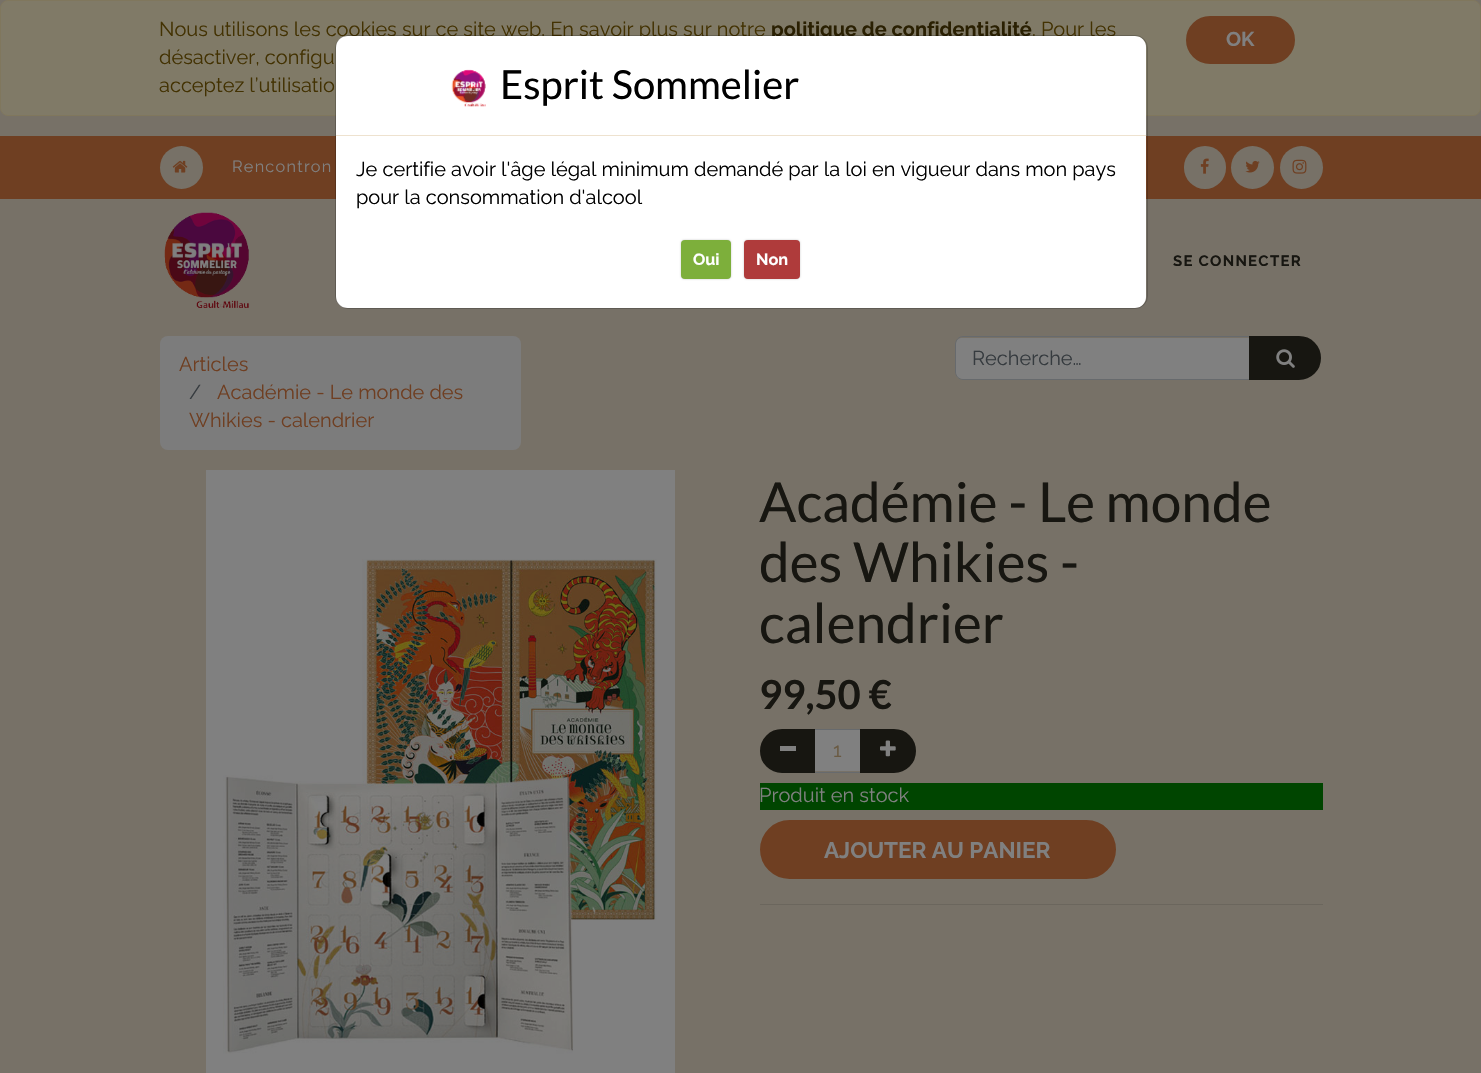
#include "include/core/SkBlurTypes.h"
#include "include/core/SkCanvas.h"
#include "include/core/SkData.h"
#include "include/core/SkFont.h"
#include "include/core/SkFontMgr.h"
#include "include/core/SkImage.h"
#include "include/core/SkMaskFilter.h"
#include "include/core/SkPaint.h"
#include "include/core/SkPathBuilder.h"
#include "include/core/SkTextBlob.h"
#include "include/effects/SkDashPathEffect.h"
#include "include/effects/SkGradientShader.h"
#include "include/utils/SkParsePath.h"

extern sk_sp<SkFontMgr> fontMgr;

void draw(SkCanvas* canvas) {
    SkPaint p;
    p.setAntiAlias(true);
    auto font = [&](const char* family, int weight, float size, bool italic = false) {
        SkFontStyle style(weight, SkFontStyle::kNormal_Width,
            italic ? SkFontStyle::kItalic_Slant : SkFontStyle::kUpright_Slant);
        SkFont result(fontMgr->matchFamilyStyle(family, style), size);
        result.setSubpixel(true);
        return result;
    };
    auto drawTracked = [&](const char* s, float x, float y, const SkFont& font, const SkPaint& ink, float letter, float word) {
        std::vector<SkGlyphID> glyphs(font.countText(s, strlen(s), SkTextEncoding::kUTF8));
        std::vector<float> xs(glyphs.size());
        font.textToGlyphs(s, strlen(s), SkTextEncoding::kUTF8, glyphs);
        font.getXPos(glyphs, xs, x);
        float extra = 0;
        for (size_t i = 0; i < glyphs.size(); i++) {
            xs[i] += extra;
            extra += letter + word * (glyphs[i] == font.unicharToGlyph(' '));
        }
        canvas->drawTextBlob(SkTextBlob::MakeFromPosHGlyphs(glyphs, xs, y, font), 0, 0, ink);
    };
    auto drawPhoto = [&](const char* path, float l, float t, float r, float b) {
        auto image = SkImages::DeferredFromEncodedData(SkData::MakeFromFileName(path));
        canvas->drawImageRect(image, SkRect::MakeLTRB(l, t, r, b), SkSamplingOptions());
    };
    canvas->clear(0xFF777167);
    p.setColor(0xFF807A67);
    canvas->drawRoundRect(SkRect::MakeLTRB(0.5f, 0.5f, 1480.5f, 115.5f), 7.5f, 7.5f, p);
    p.setStyle(SkPaint::kStroke_Style);
    p.setStrokeWidth(1);
    p.setColor(0xFF80775D);
    canvas->drawRoundRect(SkRect::MakeLTRB(0.5f, 0.5f, 1480.5f, 115.5f), 7.5f, 7.5f, p);
    auto font1 = font("Raleway", 400, 20);
    p.setStyle(SkPaint::kFill_Style);
    p.setColor(0xFF433202);
    canvas->drawString("Nous utilisons les cookies sur ce site web. En savoir plus sur notre", 159, 36, font1, p);
    auto font2 = font("Raleway", 700, 20);
    p.setColor(0xFF2A2002);
    canvas->drawString("politique de confidentialité", 771, 36, font2, p);
    p.setColor(0xFF433202);
    {
        const struct { const char* s; float x, y; } items[] = {
            {". Pour les", 1032, 36},
            {"désactiver, configu", 159, 64},
            {"acceptez l’utilisatio", 159, 92},
        };
        for (auto [s, x, y] : items) {
            canvas->drawString(s, x, y, font1, p);
        }
    }
    p.setColor(0xFF6F3F22);
    canvas->drawRoundRect(SkRect::MakeLTRB(1187.5f, 17.5f, 1293.5f, 62.5f), 22.5f, 22.5f, p);
    p.setStyle(SkPaint::kStroke_Style);
    p.setStrokeWidth(3);
    canvas->drawRoundRect(SkRect::MakeLTRB(1187.5f, 17.5f, 1293.5f, 62.5f), 22.5f, 22.5f, p);
    p.setStyle(SkPaint::kFill_Style);
    p.setColor(0xFF808080);
    canvas->drawString("OK", 1226, 46, font2, p);
    p.setColor(0xFF6F3F22);
    canvas->drawRect(SkRect::MakeLTRB(0, 136, 1481, 199), p);
    p.setColor(0xFFFFFFFF);
    canvas->drawRoundRect(SkRect::MakeLTRB(336, 36, 1146, 308), 11, 11, p);
    p.setStyle(SkPaint::kStroke_Style);
    p.setStrokeWidth(1);
    p.setColor(0x33000000);
    canvas->drawRoundRect(SkRect::MakeLTRB(335.5f, 35.5f, 1147.5f, 308.5f), 12.5f, 12.5f, p);
    p.setStyle(SkPaint::kFill_Style);
    p.setColor(0xFFEEE2CF);
    canvas->drawRect(SkRect::MakeLTRB(336, 135, 1146, 136), p);
    drawPhoto("media/1.png", 451, 69, 486, 107);
    auto font3 = font("Lato", 400, 40);
    p.setColor(0xFF000000);
    canvas->drawString("Esprit Sommelier", 500, 99, font3, p);
    canvas->drawString("Je certifie avoir l'âge légal minimum demandé par la loi en vigueur dans mon pays", 356, 176, font1, p);
    canvas->drawString("pour la consommation d'alcool", 356, 204, font1, p);
    p.setColor(0x40000000);
    p.setMaskFilter(SkMaskFilter::MakeBlur(kNormal_SkBlurStyle, 1));
    canvas->drawRoundRect(SkRect::MakeLTRB(681, 240, 731, 279), 4, 4, p);
    p.setMaskFilter(nullptr);
    p.setColor(0xFF7DAF3B);
    canvas->drawRoundRect(SkRect::MakeLTRB(681, 240, 731, 279), 4, 4, p);
    auto font4 = font("Raleway", 700, 16.25f);
    p.setColor(0xFFFFFFFF);
    canvas->drawString("Oui", 693, 265, font4, p);
    p.setColor(0x40000000);
    p.setMaskFilter(SkMaskFilter::MakeBlur(kNormal_SkBlurStyle, 1));
    canvas->drawRoundRect(SkRect::MakeLTRB(744, 240, 800, 279), 4, 4, p);
    p.setMaskFilter(nullptr);
    p.setColor(0xFFAF3B3B);
    canvas->drawRoundRect(SkRect::MakeLTRB(744, 240, 800, 279), 4, 4, p);
    p.setColor(0xFFFFFFFF);
    canvas->drawString("Non", 756, 265, font4, p);
    p.setColor(0xFF777167);
    canvas->drawCircle(181.5f, 167.5f, 21.5f, p);
    drawPhoto("media/2.png", 172, 160, 188, 173);
    auto font5 = font("Raleway", 400, 16.25f);
    p.setColor(0xFF808080);
    drawTracked("Rencontron", 232, 172, font5, p, 1.25f, 0);
    p.setColor(0xFF777167);
    canvas->drawRoundRect(SkRect::MakeLTRB(1184, 146, 1226, 189), 21, 21, p);
    drawPhoto("media/3.png", 1200, 158, 1209, 174);
    canvas->drawCircle(1252.5f, 167.5f, 21.5f, p);
    drawPhoto("media/4.png", 1245, 160, 1260, 173);
    canvas->drawCircle(1301.5f, 167.5f, 21.5f, p);
    drawPhoto("media/5.png", 1292, 159, 1307, 174);
    drawPhoto("media/6.png", 164, 212, 249, 308);
    auto font6 = font("Raleway", 700, 15);
    p.setColor(0xFF171611);
    drawTracked("SE CONNECTER", 1173, 266, font6, p, 1.25f, 0);
    p.setColor(0xFF7C7C7C);
    canvas->drawRoundRect(SkRect::MakeLTRB(160, 336, 521, 450), 8, 8, p);
    p.setColor(0xFF6F3F22);
    canvas->drawString("Articles", 179, 371, font1, p);
    p.setColor(0xFF363B3F);
    canvas->drawString("/", 189, 399, font1, p);
    p.setColor(0xFF6F3F22);
    canvas->drawString("Académie - Le monde des", 217, 399, font1, p);
    canvas->drawString("Whikies - calendrier", 189, 427, font1, p);
    p.setColor(0xFF808080);
    canvas->drawPath(SkPathBuilder().moveTo(962, 338).lineTo(1249, 338).lineTo(1249, 379).lineTo(962, 379).cubicTo(958.5f, 379, 956, 376.5f, 956, 373).lineTo(956, 344).cubicTo(956, 340.5f, 958.5f, 338, 962, 338).close().detach(), p);
    p.setStyle(SkPaint::kStroke_Style);
    p.setColor(0xFF676A6D);
    canvas->drawPath(SkPathBuilder().moveTo(963, 336.5f).lineTo(1249.5f, 336.5f).lineTo(1249.5f, 379.5f).lineTo(963, 379.5f).cubicTo(959, 379.5f, 955.5f, 376, 955.5f, 372).lineTo(955.5f, 344).cubicTo(955.5f, 340, 959, 336.5f, 963, 336.5f).close().detach(), p);
    p.setStyle(SkPaint::kFill_Style);
    p.setColor(0xFF363B3F);
    canvas->drawString("Recherche…", 972, 365, font1, p);
    p.setColor(0xFF171611);
    canvas->drawPath(SkPathBuilder().moveTo(1250.5f, 337.5f).lineTo(1299, 337.5f).cubicTo(1310.5f, 337.5f, 1319.5f, 346.5f, 1319.5f, 358).cubicTo(1319.5f, 369.5f, 1310.5f, 378.5f, 1299, 378.5f).lineTo(1250.5f, 378.5f).close().detach(), p);
    p.setStyle(SkPaint::kStroke_Style);
    p.setStrokeWidth(3);
    canvas->drawPath(SkPathBuilder().moveTo(1250.5f, 337.5f).lineTo(1299, 337.5f).cubicTo(1310.5f, 337.5f, 1319.5f, 346.5f, 1319.5f, 358).cubicTo(1319.5f, 369.5f, 1310.5f, 378.5f, 1299, 378.5f).lineTo(1250.5f, 378.5f).close().detach(), p);
    drawPhoto("media/7.png", 1276, 349, 1295, 368);
    drawPhoto("media/8.png", 206, 470, 675, 1073);
    auto font7 = font("Lato", 400, 55);
    p.setStyle(SkPaint::kFill_Style);
    {
        const struct { const char* s; float x, y; } items[] = {
            {"Académie - Le monde", 759, 522},
            {"des Whikies -", 759, 582},
            {"calendrier", 759, 643},
        };
        for (auto [s, x, y] : items) {
            canvas->drawString(s, x, y, font7, p);
        }
    }
    auto font8 = font("Lato", 700, 40);
    canvas->drawString("99,50 €", 759, 709, font8, p);
    p.setColor(0xFF808080);
    canvas->drawRect(SkRect::MakeLTRB(815, 730, 860, 771), p);
    p.setStyle(SkPaint::kStroke_Style);
    p.setStrokeWidth(1);
    p.setColor(0xFF676A6D);
    canvas->drawRect(SkRect::MakeLTRB(814.5f, 729.5f, 860.5f, 772.5f), p);
    p.setStyle(SkPaint::kFill_Style);
    p.setColor(0xFF171611);
    canvas->drawPath(SkPathBuilder().moveTo(782, 730.5f).lineTo(813.5f, 730.5f).lineTo(813.5f, 771.5f).lineTo(782, 771.5f).cubicTo(770.5f, 771.5f, 761.5f, 762.5f, 761.5f, 751).cubicTo(761.5f, 739.5f, 770.5f, 730.5f, 782, 730.5f).close().detach(), p);
    p.setStyle(SkPaint::kStroke_Style);
    p.setStrokeWidth(3);
    canvas->drawPath(SkPathBuilder().moveTo(782, 730.5f).lineTo(813.5f, 730.5f).lineTo(813.5f, 771.5f).lineTo(782, 771.5f).cubicTo(770.5f, 771.5f, 761.5f, 762.5f, 761.5f, 751).cubicTo(761.5f, 739.5f, 770.5f, 730.5f, 782, 730.5f).close().detach(), p);
    p.setStyle(SkPaint::kFill_Style);
    p.setColor(0xFF808080);
    canvas->drawRect(SkRect::MakeLTRB(780, 746, 796, 751), p);
    p.setColor(0xFF6A5A42);
    canvas->drawString("1", 833, 757, font1, p);
    p.setColor(0xFF171611);
    canvas->drawPath(SkPathBuilder().moveTo(861.5f, 730.5f).lineTo(894, 730.5f).cubicTo(905.5f, 730.5f, 914.5f, 739.5f, 914.5f, 751).cubicTo(914.5f, 762.5f, 905.5f, 771.5f, 894, 771.5f).lineTo(861.5f, 771.5f).close().detach(), p);
    p.setStyle(SkPaint::kStroke_Style);
    canvas->drawPath(SkPathBuilder().moveTo(861.5f, 730.5f).lineTo(894, 730.5f).cubicTo(905.5f, 730.5f, 914.5f, 739.5f, 914.5f, 751).cubicTo(914.5f, 762.5f, 905.5f, 771.5f, 894, 771.5f).lineTo(861.5f, 771.5f).close().detach(), p);
    drawPhoto("media/9.png", 880, 740, 896, 757);
    p.setStyle(SkPaint::kFill_Style);
    p.setColor(0xFF004500);
    canvas->drawRect(SkRect::MakeLTRB(760, 783, 1323, 810), p);
    p.setColor(0xFF808080);
    canvas->drawString("Produit en stock", 759, 802, font1, p);
    p.setColor(0xFF6F3F22);
    canvas->drawRoundRect(SkRect::MakeLTRB(761.5f, 821.5f, 1114.5f, 877.5f), 28, 28, p);
    p.setStyle(SkPaint::kStroke_Style);
    canvas->drawRoundRect(SkRect::MakeLTRB(761.5f, 821.5f, 1114.5f, 877.5f), 28, 28, p);
    auto font9 = font("Raleway", 700, 22.5f);
    p.setStyle(SkPaint::kFill_Style);
    p.setColor(0xFF808080);
    canvas->drawString("AJOUTER AU PANIER", 824, 858, font9, p);
    p.setColor(0xFF6B665D);
    canvas->drawRect(SkRect::MakeLTRB(760, 904, 1323, 905), p);
}
